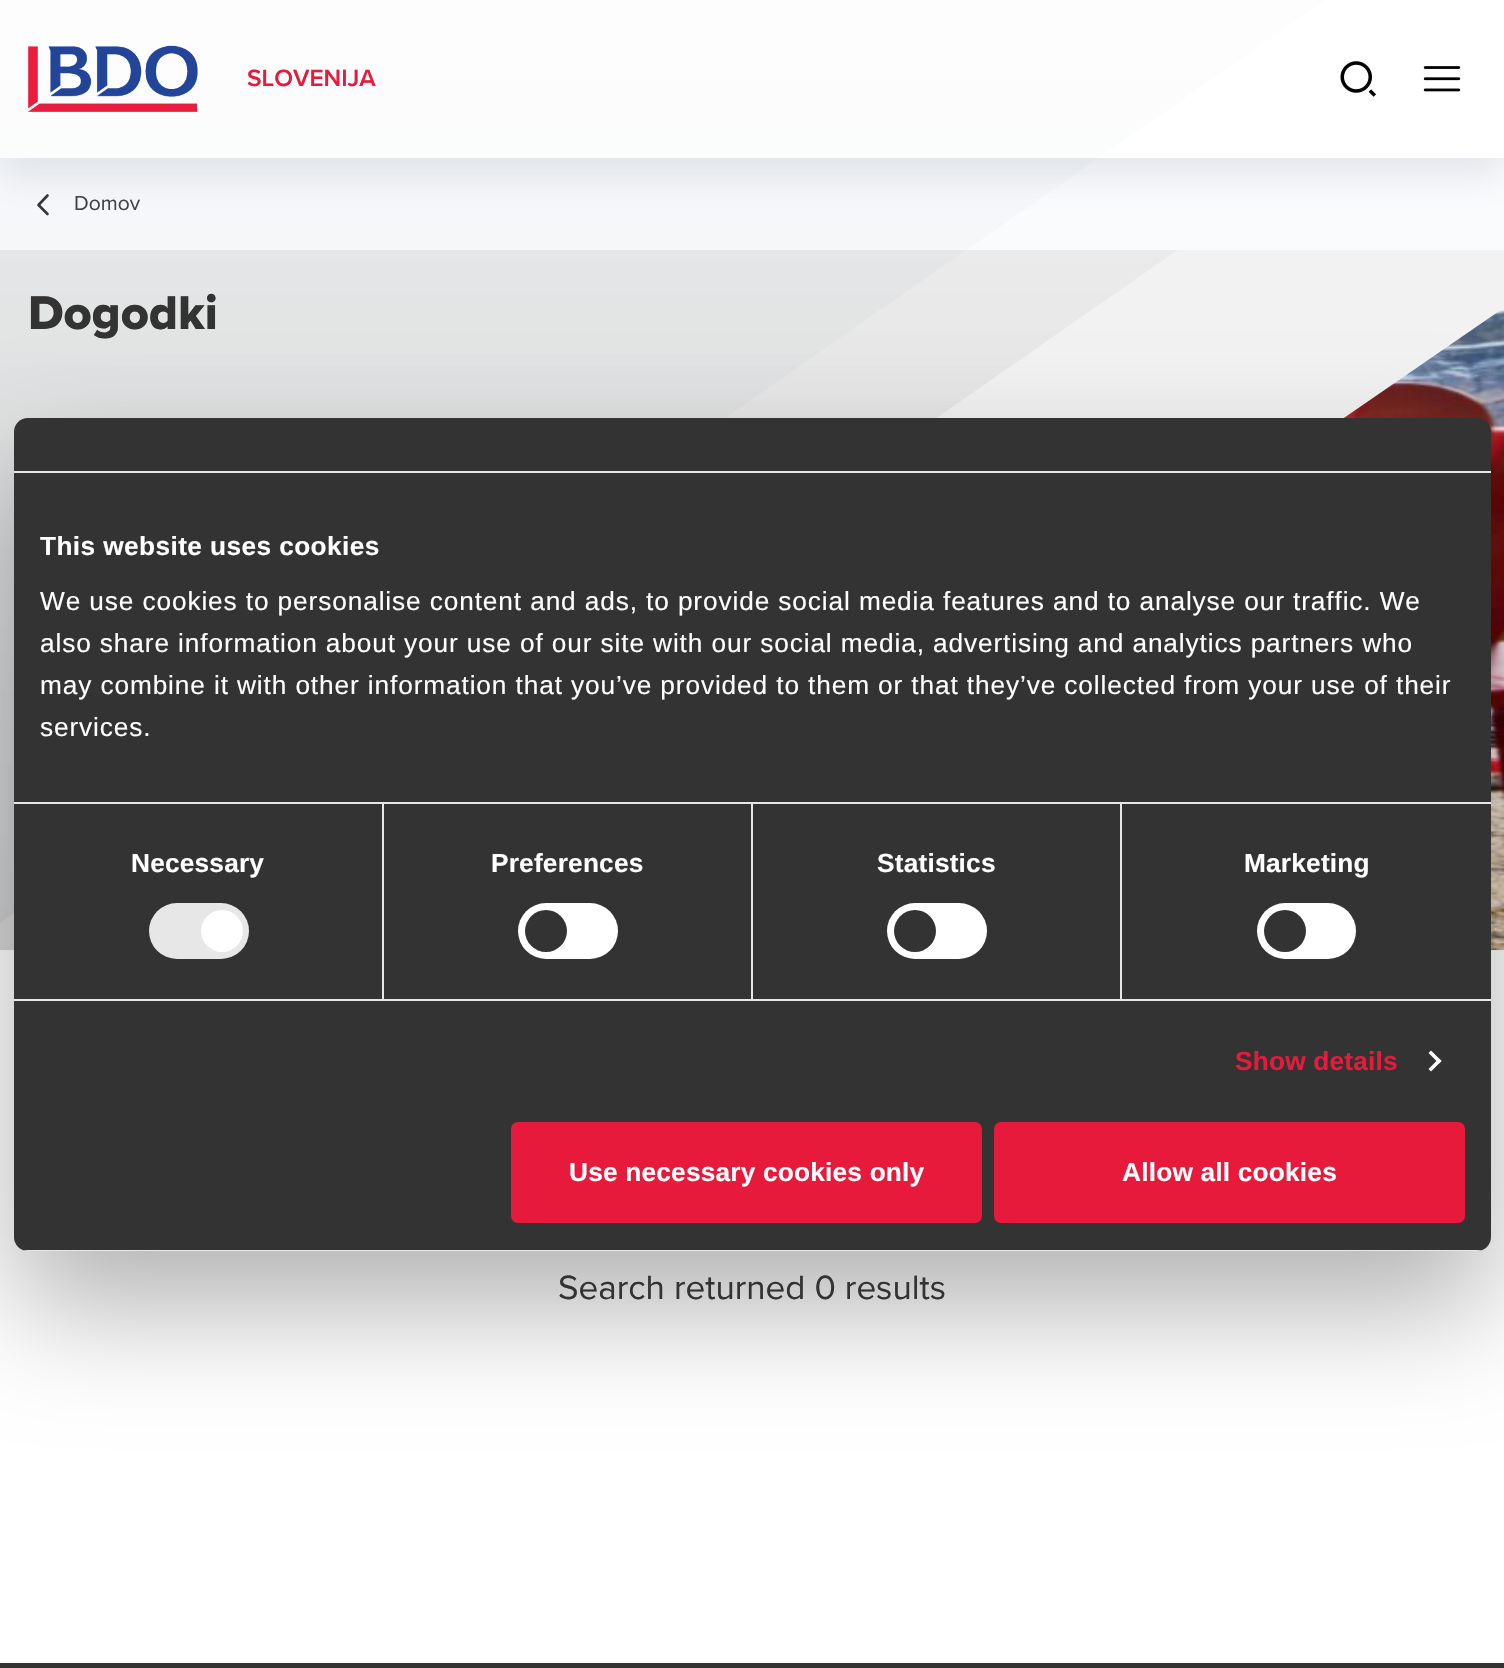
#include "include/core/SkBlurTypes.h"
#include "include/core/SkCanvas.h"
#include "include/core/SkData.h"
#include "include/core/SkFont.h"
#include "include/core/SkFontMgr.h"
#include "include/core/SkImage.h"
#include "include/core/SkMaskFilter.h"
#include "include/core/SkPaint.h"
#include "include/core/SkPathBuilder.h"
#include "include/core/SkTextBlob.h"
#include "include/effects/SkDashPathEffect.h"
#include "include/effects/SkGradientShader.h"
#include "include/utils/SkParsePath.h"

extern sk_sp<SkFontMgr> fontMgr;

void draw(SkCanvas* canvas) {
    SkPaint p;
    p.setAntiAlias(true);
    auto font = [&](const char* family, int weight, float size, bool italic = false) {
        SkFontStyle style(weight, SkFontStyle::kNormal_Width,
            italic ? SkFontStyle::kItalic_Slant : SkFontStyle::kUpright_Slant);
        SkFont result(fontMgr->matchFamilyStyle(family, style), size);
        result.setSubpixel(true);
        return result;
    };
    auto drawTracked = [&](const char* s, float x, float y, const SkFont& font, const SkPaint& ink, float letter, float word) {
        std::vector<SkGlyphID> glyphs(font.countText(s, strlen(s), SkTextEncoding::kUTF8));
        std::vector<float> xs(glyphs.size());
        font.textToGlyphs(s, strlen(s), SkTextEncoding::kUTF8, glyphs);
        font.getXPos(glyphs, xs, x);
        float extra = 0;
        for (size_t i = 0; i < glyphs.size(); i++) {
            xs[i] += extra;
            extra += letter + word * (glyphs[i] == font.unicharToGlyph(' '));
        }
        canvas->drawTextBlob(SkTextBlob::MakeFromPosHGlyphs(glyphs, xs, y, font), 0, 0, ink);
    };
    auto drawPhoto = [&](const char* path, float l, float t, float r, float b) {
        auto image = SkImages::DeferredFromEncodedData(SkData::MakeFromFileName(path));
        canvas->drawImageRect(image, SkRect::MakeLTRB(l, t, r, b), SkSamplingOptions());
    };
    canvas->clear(0xFFFFFFFF);
    p.setColor(0xFFFAFBFD);
    canvas->drawRect(SkRect::MakeLTRB(0, 158, 1504, 250), p);
    p.setStyle(SkPaint::kStroke_Style);
    p.setStrokeWidth(2.6f);
    p.setStrokeCap(SkPaint::kRound_Cap);
    p.setStrokeJoin(SkPaint::kRound_Join);
    p.setColor(0xFF333333);
    canvas->drawPath(SkPathBuilder().moveTo(47.5f, 214).lineTo(38.5f, 205).lineTo(47.5f, 195.5f).detach(), p);
    canvas->save();
    canvas->clipPath(SkPathBuilder(SkPathFillType::kEvenOdd).moveTo(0, 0).lineTo(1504, 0).lineTo(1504, 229).lineTo(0, 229).close().moveTo(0, 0).lineTo(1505, 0).lineTo(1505, 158).lineTo(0, 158).close().detach(), true);
    p.setStyle(SkPaint::kFill_Style);
    p.setColor(0x265B6E7F);
    p.setMaskFilter(SkMaskFilter::MakeBlur(kNormal_SkBlurStyle, 17.5f));
    canvas->drawRect(SkRect::MakeLTRB(0, 18, 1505, 175), p);
    p.setMaskFilter(nullptr);
    canvas->restore();
    drawPhoto("media/1.png", 28, 45, 198, 112);
    auto font1 = font("Proxima Nova", 600, 24.5f);
    p.setColor(0xFFE81A3B);
    canvas->drawString("SLOVENIJA", 247, 86, font1, p);
    drawPhoto("media/2.png", 1340, 61, 1376, 97);
    drawPhoto("media/3.png", 1423, 66, 1461, 92);
    auto font2 = font("Proxima Nova", 400, 21);
    p.setColor(0xFF404040);
    canvas->drawString("Domov", 74, 210, font2, p);
    drawPhoto("media/4.png", 0, 307, 1504, 951);
    canvas->save();
    canvas->clipRect(SkRect::MakeLTRB(0, 250, 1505, 950));
    p.setColor(0xFFF2F2F2);
    canvas->drawPath(SkPathBuilder().moveTo(0, -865).lineTo(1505, -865).lineTo(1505, 307).lineTo(0, 1343).close().detach(), p);
    {
        const SkColor colors[] = {0xFFDBDEE1, 0xFFD4D4D4, 0xFFF1F1F1};
        const float stops[] = {0, 0, 1};
        const SkPoint ends[] = {{753, 1070}, {753, 22}};
        p.setShader(SkGradientShader::MakeLinear(ends, colors, stops, 3, SkTileMode::kClamp));
        p.setAlpha(255);
    }
    canvas->drawPath(SkPathBuilder().moveTo(0, 22).lineTo(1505, 22).lineTo(0, 1070).close().detach(), p);
    canvas->restore();
    {
        const SkColor colors[] = {0x17333333, 0x17637889, 0x00637889};
        const float stops[] = {0, 0, 1};
        const SkPoint ends[] = {{753, 923}, {753, -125}};
        p.setShader(SkGradientShader::MakeLinear(ends, colors, stops, 3, SkTileMode::kClamp));
        p.setAlpha(255);
    }
    canvas->drawPath(SkPathBuilder().moveTo(0, -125).lineTo(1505, -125).lineTo(0, 923).close().detach(), p);
    auto font3 = font("Proxima Nova", 800, 49);
    p.setShader(nullptr);
    p.setColor(0xFF333333);
    canvas->drawString("Dogodki", 28, 329, font3, p);
    p.setColor(0x4D000000);
    p.setMaskFilter(SkMaskFilter::MakeBlur(kNormal_SkBlurStyle, 59.5f));
    canvas->drawRoundRect(SkRect::MakeLTRB(14, 474, 1491, 1307), 14, 14, p);
    p.setMaskFilter(nullptr);
    p.setColor(0xFF333333);
    canvas->drawRoundRect(SkRect::MakeLTRB(14, 418, 1491, 1251), 14, 14, p);
    {
        const struct { float l, t, r, b; SkColor color; } items[] = {
            {14, 471, 1491, 473, 0xFFE7E7E7},
            {382, 803, 384, 999, 0xFFE7E7E7},
            {751, 803, 753, 999, 0xFFE7E7E7},
            {1120, 803, 1122, 999, 0xFFE7E7E7},
            {14, 802, 1491, 804, 0xFFE7E7E7},
        };
        for (auto [l, t, r, b, color] : items) {
            p.setColor(color);
            canvas->drawRect(SkRect::MakeLTRB(l, t, r, b), p);
        }
    }
    auto font4 = font("Liberation Sans", 700, 26.25f);
    p.setColor(0xFFFFFFFF);
    drawTracked("This website uses cookies", 40, 555, font4, p, 0.4f, 0);
    auto font5 = font("Liberation Sans", 400, 26.25f);
    {
        const struct { const char* s; float x, y; } items[] = {
            {"We use cookies to personalise content and ads, to provide social media features and to analyse our traffic. We", 40, 610},
            {"also share information about your use of our site with our social media, advertising and analytics partners who", 40, 652},
            {"may combine it with other information that you’ve provided to them or that they’ve collected from your use of their", 40, 694},
            {"services.", 40, 736},
        };
        for (auto [s, x, y] : items) {
            drawTracked(s, x, y, font5, p, 0.88f, 0);
        }
    }
    p.setColor(0xFFE7E7E7);
    canvas->drawRect(SkRect::MakeLTRB(14, 999, 1491, 1001), p);
    p.setColor(0xFFFFFFFF);
    drawTracked("Necessary", 131, 872, font4, p, 0.2f, 0);
    p.setColor(0xFFE7E7E7);
    canvas->drawRoundRect(SkRect::MakeLTRB(149, 903, 249, 959), 28, 28, p);
    p.setColor(0xFFFFFFFF);
    canvas->drawCircle(222, 931, 21, p);
    drawTracked("Preferences", 491, 872, font4, p, 0.2f, 0);
    canvas->drawRoundRect(SkRect::MakeLTRB(518, 903, 618, 959), 28, 28, p);
    p.setColor(0xFF333333);
    canvas->drawCircle(546, 931, 21, p);
    p.setColor(0xFFFFFFFF);
    drawTracked("Statistics", 877, 872, font4, p, 0.2f, 0);
    canvas->drawRoundRect(SkRect::MakeLTRB(887, 903, 987, 959), 28, 28, p);
    p.setColor(0xFF333333);
    canvas->drawCircle(915, 931, 21, p);
    p.setColor(0xFFFFFFFF);
    drawTracked("Marketing", 1244, 872, font4, p, 0.2f, 0);
    canvas->drawRoundRect(SkRect::MakeLTRB(1257, 903, 1356, 959), 28, 28, p);
    p.setColor(0xFF333333);
    canvas->drawCircle(1285, 931, 21, p);
    p.setColor(0xFFE81A3B);
    drawTracked("Show details", 1235, 1070, font4, p, 0.2f, 0);
    p.setColor(0xFFFFFFFF);
    canvas->drawPath(SkPathBuilder().moveTo(1431, 1050.5f).lineTo(1441.5f, 1061).lineTo(1439, 1063.5f).lineTo(1428.5f, 1053).close().detach(), p);
    canvas->drawPath(SkPathBuilder().moveTo(1439, 1058.5f).lineTo(1441.5f, 1061).lineTo(1431, 1071.5f).lineTo(1428.5f, 1069).close().detach(), p);
    canvas->save();
    canvas->clipPath(SkPathBuilder().moveTo(28, 418).lineTo(1477, 418).cubicTo(1484.5f, 418, 1491, 424.5f, 1491, 432).lineTo(1491, 1237).cubicTo(1491, 1244.5f, 1484.5f, 1251, 1477, 1251).lineTo(28, 1251).cubicTo(20.5f, 1251, 14, 1244.5f, 14, 1237).lineTo(14, 432).cubicTo(14, 424.5f, 20.5f, 418, 28, 418).close().detach(), true);
    p.setColor(0xFFE7E7E7);
    canvas->drawRect(SkRect::MakeLTRB(23, 1250, 1482, 1251), p);
    canvas->restore();
    p.setColor(0xFFE81A3B);
    canvas->drawRoundRect(SkRect::MakeLTRB(513, 1124, 980, 1221), 5, 5, p);
    p.setStyle(SkPaint::kStroke_Style);
    p.setStrokeWidth(4);
    p.setStrokeCap(SkPaint::kButt_Cap);
    p.setStrokeJoin(SkPaint::kMiter_Join);
    canvas->drawRoundRect(SkRect::MakeLTRB(513, 1124, 980, 1221), 5, 5, p);
    p.setStyle(SkPaint::kFill_Style);
    p.setColor(0xFFFFFFFF);
    drawTracked("Use necessary cookies only", 569, 1181, font4, p, 0.2f, 0);
    p.setColor(0xFFE81A3B);
    canvas->drawRoundRect(SkRect::MakeLTRB(996, 1124, 1463, 1221), 5, 5, p);
    p.setStyle(SkPaint::kStroke_Style);
    canvas->drawRoundRect(SkRect::MakeLTRB(996, 1124, 1463, 1221), 5, 5, p);
    p.setStyle(SkPaint::kFill_Style);
    p.setColor(0xFFFFFFFF);
    drawTracked("Allow all cookies", 1122, 1181, font4, p, 0.2f, 0);
    auto font6 = font("Proxima Nova", 400, 35);
    p.setColor(0xFF333333);
    canvas->drawString("Search returned 0 results", 558, 1299, font6, p);
    canvas->drawRect(SkRect::MakeLTRB(0, 1663, 1504, 1668), p);
}
